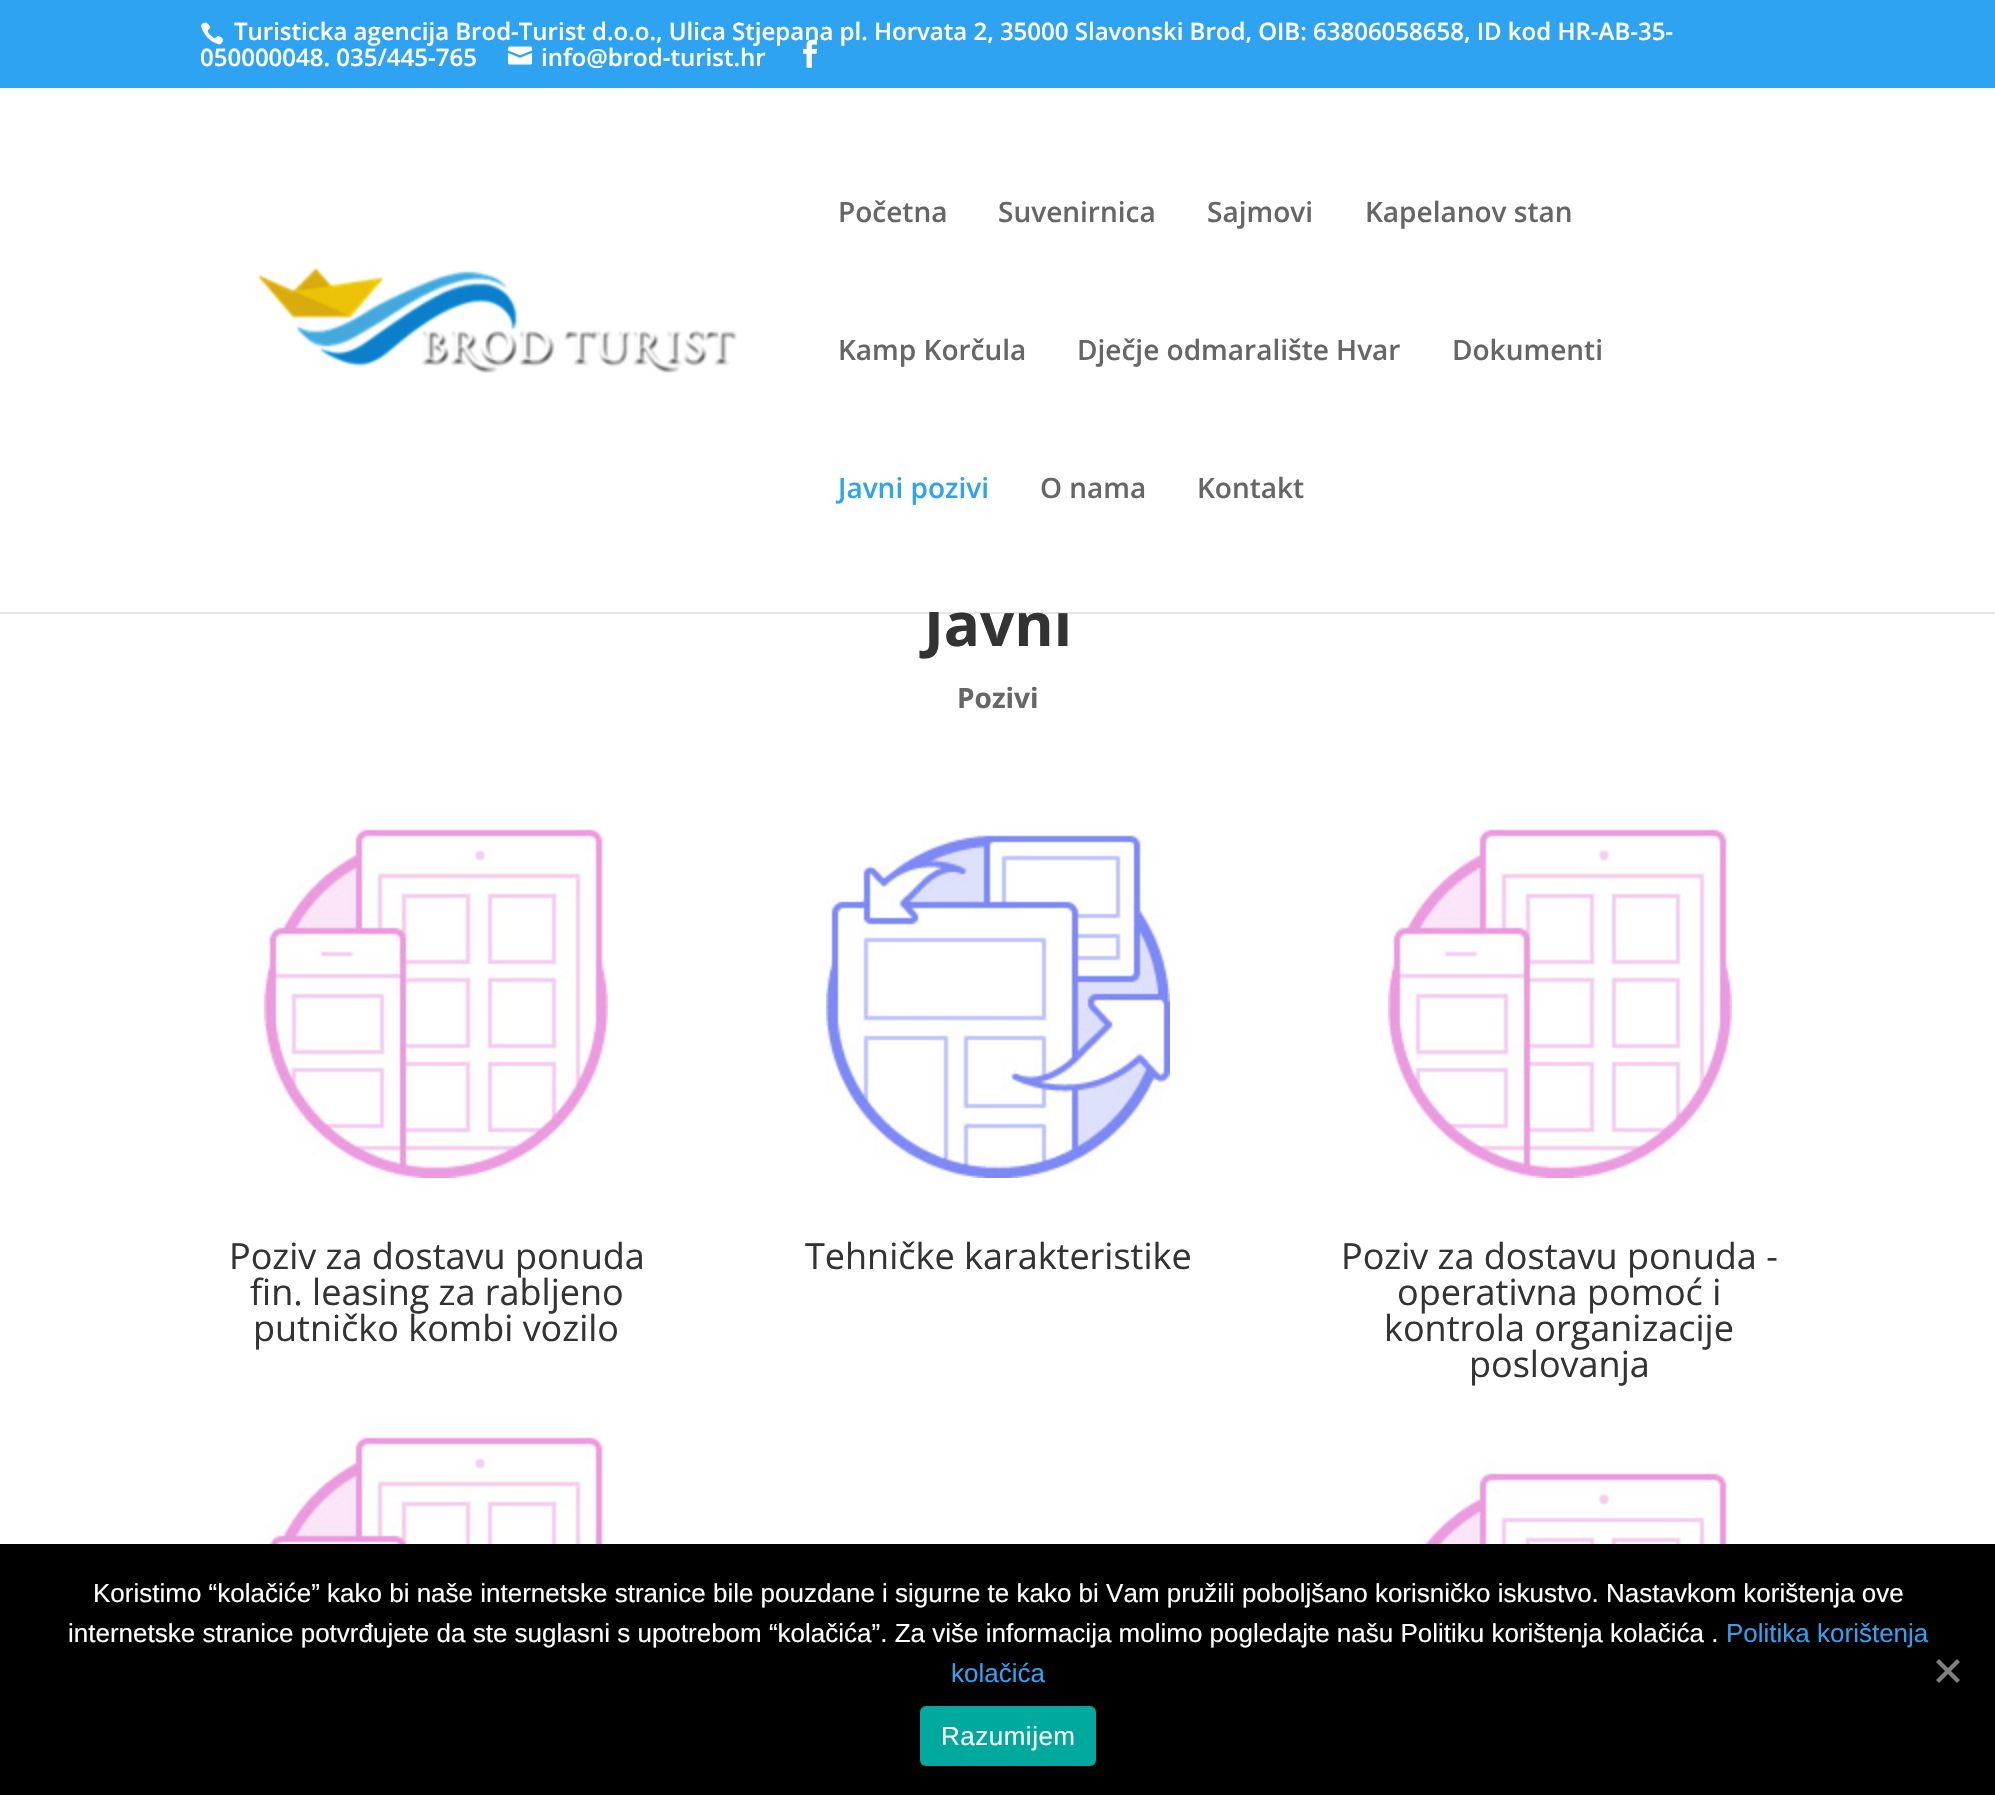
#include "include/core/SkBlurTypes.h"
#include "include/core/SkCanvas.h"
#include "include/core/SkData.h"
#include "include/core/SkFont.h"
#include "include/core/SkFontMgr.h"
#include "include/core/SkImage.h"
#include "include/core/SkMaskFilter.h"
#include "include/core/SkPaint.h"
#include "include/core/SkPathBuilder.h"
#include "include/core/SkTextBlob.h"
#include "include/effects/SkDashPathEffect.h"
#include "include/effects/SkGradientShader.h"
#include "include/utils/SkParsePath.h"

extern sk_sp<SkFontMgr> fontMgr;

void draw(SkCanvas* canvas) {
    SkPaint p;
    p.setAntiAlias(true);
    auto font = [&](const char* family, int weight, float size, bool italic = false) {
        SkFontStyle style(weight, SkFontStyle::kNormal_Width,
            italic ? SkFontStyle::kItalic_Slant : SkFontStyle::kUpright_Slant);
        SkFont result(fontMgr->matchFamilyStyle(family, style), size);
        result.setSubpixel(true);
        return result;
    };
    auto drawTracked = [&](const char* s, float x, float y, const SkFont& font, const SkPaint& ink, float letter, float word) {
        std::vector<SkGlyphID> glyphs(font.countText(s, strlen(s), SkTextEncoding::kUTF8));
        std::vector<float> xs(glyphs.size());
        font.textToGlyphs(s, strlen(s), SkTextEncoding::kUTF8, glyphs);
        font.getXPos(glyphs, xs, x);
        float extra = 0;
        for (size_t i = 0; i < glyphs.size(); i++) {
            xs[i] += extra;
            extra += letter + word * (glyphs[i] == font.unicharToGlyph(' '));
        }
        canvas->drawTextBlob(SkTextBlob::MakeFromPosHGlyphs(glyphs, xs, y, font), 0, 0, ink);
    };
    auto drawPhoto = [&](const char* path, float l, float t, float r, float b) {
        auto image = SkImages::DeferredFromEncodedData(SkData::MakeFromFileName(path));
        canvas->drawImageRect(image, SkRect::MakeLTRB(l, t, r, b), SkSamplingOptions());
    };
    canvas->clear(0xFFFFFFFF);
    p.setColor(0xFF2EA3F2);
    canvas->drawRect(SkRect::MakeLTRB(0, 0, 1995, 88), p);
    drawPhoto("media/1.png", 201, 22, 223, 45);
    auto font1 = font("Open Sans", 600, 24);
    p.setColor(0xFFFFFFFF);
    canvas->drawString("Turisticka agencija Brod-Turist d.o.o., Ulica Stjepana pl. Horvata 2, 35000 Slavonski Brod, OIB: 63806058658, ID kod HR-AB-35-", 234, 40, font1, p);
    canvas->drawString("050000048. 035/445-765", 200, 66, font1, p);
    drawPhoto("media/2.png", 508, 46, 532, 65);
    canvas->drawString("info@brod-turist.hr", 541, 66, font1, p);
    drawPhoto("media/3.png", 803, 39, 818, 68);
    p.setColor(0x1A000000);
    canvas->drawRect(SkRect::MakeLTRB(0, 612, 1995, 614), p);
    auto font2 = font("Open Sans", 700, 60);
    p.setColor(0xFF333333);
    canvas->drawString("Javni", 924, 646, font2, p);
    p.setColor(0xFFFFFFFF);
    canvas->drawRect(SkRect::MakeLTRB(929, 600, 1068, 612), p);
    drawPhoto("media/4.png", 257, 267, 737, 373);
    auto font3 = font("Open Sans", 600, 28);
    p.setColor(0xFF666666);
    {
        const struct { const char* s; float x, y; } items[] = {
            {"Početna", 838, 222},
            {"Suvenirnica", 998, 222},
            {"Sajmovi", 1207, 222},
            {"Kapelanov stan", 1365, 222},
            {"Kamp Korčula", 838, 360},
            {"Dječje odmaralište Hvar", 1077, 360},
            {"Dokumenti", 1452, 360},
        };
        for (auto [s, x, y] : items) {
            canvas->drawString(s, x, y, font3, p);
        }
    }
    p.setColor(0xFF2EA3F2);
    canvas->drawString("Javni pozivi", 838, 498, font3, p);
    p.setColor(0xFF666666);
    canvas->drawString("O nama", 1040, 498, font3, p);
    canvas->drawString("Kontakt", 1197, 498, font3, p);
    auto font4 = font("Open Sans", 700, 28);
    canvas->drawString("Pozivi", 957, 708, font4, p);
    drawPhoto("media/5.png", 264, 818, 608, 1178);
    auto font5 = font("Open Sans", 400, 36);
    p.setColor(0xFF333333);
    {
        const struct { const char* s; float x, y; } items[] = {
            {"Poziv za dostavu ponuda", 229, 1269},
            {"fin. leasing za rabljeno", 250, 1305},
            {"putničko kombi vozilo", 253, 1341},
        };
        for (auto [s, x, y] : items) {
            canvas->drawString(s, x, y, font5, p);
        }
    }
    drawPhoto("media/6.png", 264, 1426, 608, 1544);
    drawPhoto("media/7.png", 826, 834, 1170, 1178);
    canvas->drawString("Tehničke karakteristike", 805, 1269, font5, p);
    drawPhoto("media/5.png", 1388, 818, 1732, 1178);
    {
        const struct { const char* s; float x, y; } items[] = {
            {"Poziv za dostavu ponuda -", 1341, 1269},
            {"operativna pomoć i", 1397, 1305},
            {"kontrola organizacije", 1384, 1341},
            {"poslovanja", 1469, 1377},
        };
        for (auto [s, x, y] : items) {
            canvas->drawString(s, x, y, font5, p);
        }
    }
    drawPhoto("media/8.png", 1388, 1462, 1732, 1544);
    p.setColor(0xFF000000);
    canvas->drawRect(SkRect::MakeLTRB(0, 1544, 1995, 1795), p);
    auto font6 = font("Liberation Sans", 400, 26);
    p.setColor(0xFFFFFFFF);
    canvas->drawString("Koristimo “kolačiće” kako bi naše internetske stranice bile pouzdane i sigurne te kako bi Vam pružili poboljšano korisničko iskustvo. Nastavkom korištenja ove", 93, 1602, font6, p);
    canvas->drawString("internetske stranice potvrđujete da ste suglasni s upotrebom “kolačića”. Za više informacija molimo pogledajte našu Politiku korištenja kolačića .", 68, 1642, font6, p);
    p.setColor(0xFF2EA3F2);
    canvas->drawString("Politika korištenja", 1726, 1642, font6, p);
    canvas->drawString("kolačića", 951, 1682, font6, p);
    p.setColor(0xFF808080);
    canvas->drawPath(SkPathBuilder().moveTo(1957, 1659).lineTo(1960, 1662).lineTo(1939, 1683).lineTo(1936, 1680).close().detach(), p);
    canvas->drawPath(SkPathBuilder().moveTo(1936, 1662).lineTo(1939, 1659).lineTo(1960, 1680).lineTo(1957, 1683).close().detach(), p);
    p.setColor(0xFF00A99D);
    canvas->drawRoundRect(SkRect::MakeLTRB(920, 1706, 1096, 1766), 6, 6, p);
    p.setColor(0xFFFFFFFF);
    drawTracked("Razumijem", 941, 1745, font6, p, 0.5f, 0);
}
